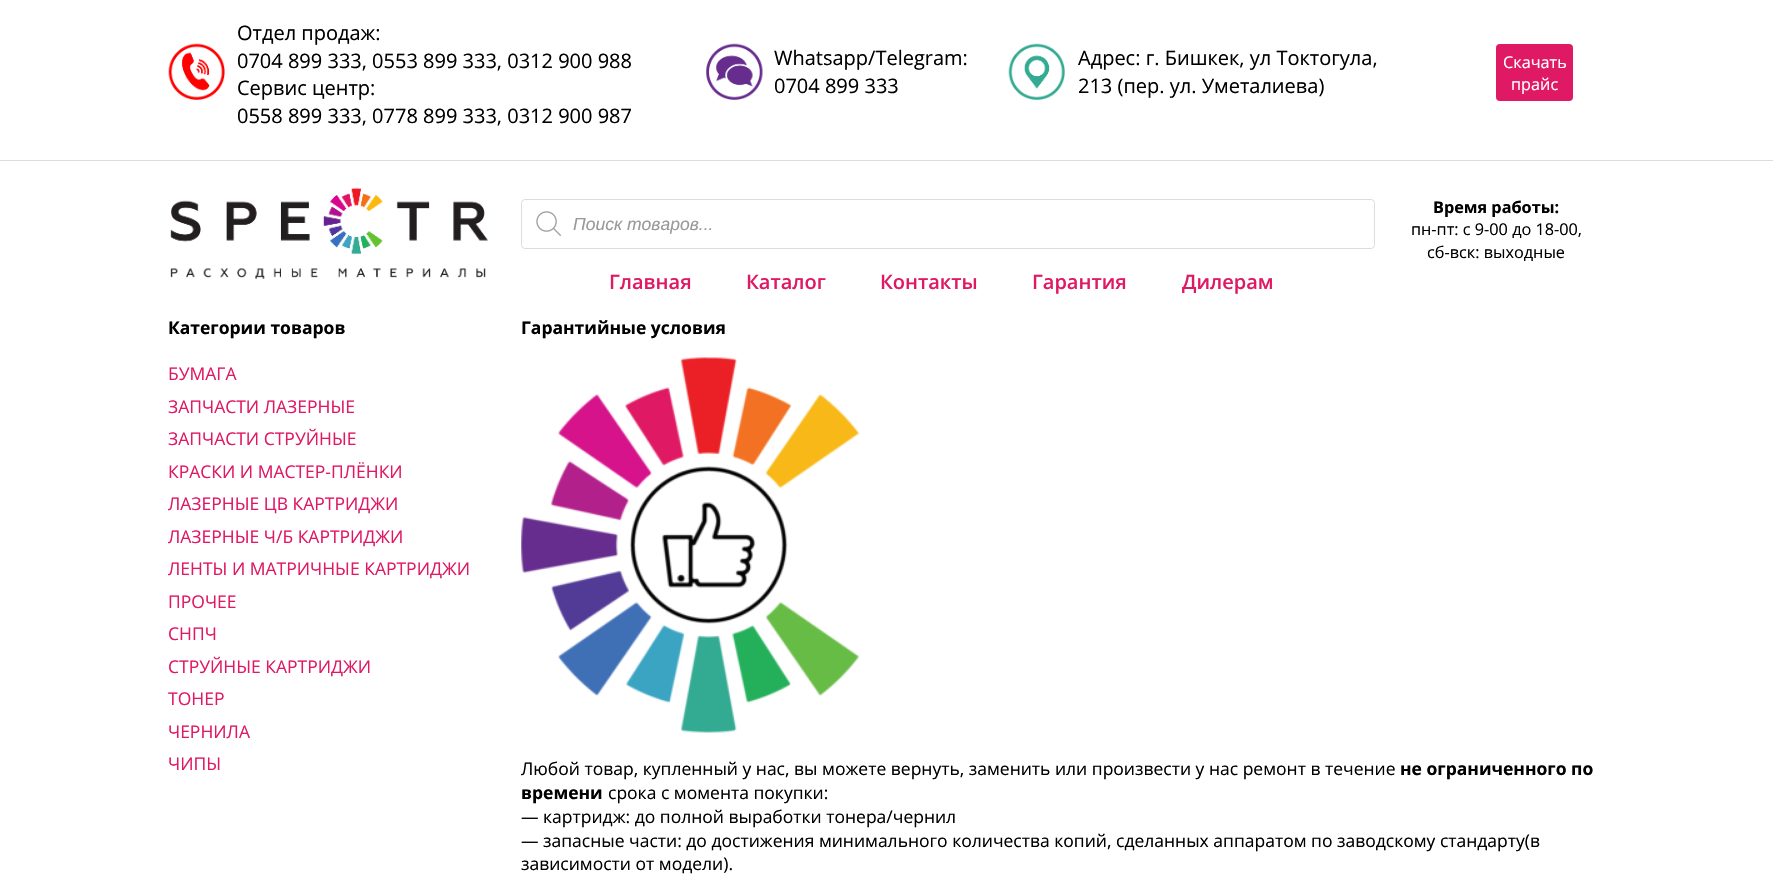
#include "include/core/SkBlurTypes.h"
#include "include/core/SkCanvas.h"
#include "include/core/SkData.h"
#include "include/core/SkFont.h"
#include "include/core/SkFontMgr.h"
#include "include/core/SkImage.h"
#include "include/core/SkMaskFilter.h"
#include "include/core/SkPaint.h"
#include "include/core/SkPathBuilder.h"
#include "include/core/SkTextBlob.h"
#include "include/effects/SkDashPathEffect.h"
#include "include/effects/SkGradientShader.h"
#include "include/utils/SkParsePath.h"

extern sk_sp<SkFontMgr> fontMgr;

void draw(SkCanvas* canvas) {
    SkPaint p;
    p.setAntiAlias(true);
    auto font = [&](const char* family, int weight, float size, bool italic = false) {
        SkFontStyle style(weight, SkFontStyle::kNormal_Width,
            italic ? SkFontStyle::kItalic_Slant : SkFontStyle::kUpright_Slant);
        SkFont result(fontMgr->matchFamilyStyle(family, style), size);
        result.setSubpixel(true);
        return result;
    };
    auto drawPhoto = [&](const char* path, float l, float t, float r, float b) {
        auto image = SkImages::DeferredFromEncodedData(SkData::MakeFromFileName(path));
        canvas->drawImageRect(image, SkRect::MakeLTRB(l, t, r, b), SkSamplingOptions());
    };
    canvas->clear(0xFFFFFFFF);
    drawPhoto("media/1.png", 168, 43, 225, 100);
    auto font1 = font("Open Sans", 400, 20);
    p.setColor(0xFF000000);
    {
        const struct { const char* s; float x, y; } items[] = {
            {"Отдел продаж:", 237, 40},
            {"0704 899 333, 0553 899 333, 0312 900 988", 237, 68},
            {"Сервис центр:", 237, 95},
            {"0558 899 333, 0778 899 333, 0312 900 987", 237, 123},
        };
        for (auto [s, x, y] : items) {
            canvas->drawString(s, x, y, font1, p);
        }
    }
    drawPhoto("media/2.png", 706, 43, 763, 100);
    canvas->drawString("Whatsapp/Telegram:", 774, 65, font1, p);
    canvas->drawString("0704 899 333", 774, 93, font1, p);
    drawPhoto("media/3.png", 1008, 43, 1065, 100);
    canvas->drawString("Адрес: г. Бишкек, ул Токтогула,", 1078, 65, font1, p);
    canvas->drawString("213 (пер. ул. Уметалиева)", 1078, 93, font1, p);
    p.setColor(0xFFE01964);
    canvas->drawRoundRect(SkRect::MakeLTRB(1496, 44, 1573, 101), 4, 4, p);
    auto font2 = font("Open Sans", 400, 16.25f);
    p.setColor(0xFFFFFFFF);
    canvas->drawString("Скачать", 1503, 68, font2, p);
    canvas->drawString("прайс", 1511, 90, font2, p);
    p.setColor(0xFFDDDDDD);
    canvas->drawRect(SkRect::MakeLTRB(0, 160, 1773, 161), p);
    drawPhoto("media/4.png", 170, 187, 488, 280);
    p.setStyle(SkPaint::kStroke_Style);
    p.setStrokeWidth(1);
    canvas->drawRoundRect(SkRect::MakeLTRB(521.5f, 199.5f, 1374.5f, 248.5f), 3.5f, 3.5f, p);
    drawPhoto("media/5.png", 536, 211, 561, 236);
    auto font3 = font("Liberation Sans", 400, 17.5f, true);
    p.setStyle(SkPaint::kFill_Style);
    p.setColor(0xFF999999);
    canvas->drawString("Поиск товаров...", 573, 230, font3, p);
    auto font4 = font("Open Sans", 600, 20);
    p.setColor(0xFFE01964);
    {
        const struct { const char* s; float x, y; } items[] = {
            {"Главная", 609, 289},
            {"Каталог", 746, 289},
            {"Контакты", 880, 289},
            {"Гарантия", 1032, 289},
            {"Дилерам", 1182, 289},
        };
        for (auto [s, x, y] : items) {
            canvas->drawString(s, x, y, font4, p);
        }
    }
    auto font5 = font("Open Sans", 700, 16.25f);
    p.setColor(0xFF000000);
    canvas->drawString("Время работы:", 1433, 213, font5, p);
    canvas->drawString("пн-пт: с 9-00 до 18-00,", 1411, 235, font2, p);
    canvas->drawString("сб-вск: выходные", 1427, 258, font2, p);
    auto font6 = font("Open Sans", 700, 17.5f);
    canvas->drawString("Категории товаров", 168, 334, font6, p);
    auto font7 = font("Open Sans", 400, 17.5f);
    p.setColor(0xFFE01964);
    {
        const struct { const char* s; float x, y; } items[] = {
            {"БУМАГА", 168, 380},
            {"ЗАПЧАСТИ ЛАЗЕРНЫЕ", 168, 413},
            {"ЗАПЧАСТИ СТРУЙНЫЕ", 168, 445},
            {"КРАСКИ И МАСТЕР-ПЛЁНКИ", 168, 478},
            {"ЛАЗЕРНЫЕ ЦВ КАРТРИДЖИ", 168, 510},
            {"ЛАЗЕРНЫЕ Ч/Б КАРТРИДЖИ", 168, 543},
            {"ЛЕНТЫ И МАТРИЧНЫЕ КАРТРИДЖИ", 168, 575},
            {"ПРОЧЕЕ", 168, 608},
            {"СНПЧ", 168, 640},
            {"СТРУЙНЫЕ КАРТРИДЖИ", 168, 673},
            {"ТОНЕР", 168, 705},
            {"ЧЕРНИЛА", 168, 738},
            {"ЧИПЫ", 168, 770},
        };
        for (auto [s, x, y] : items) {
            canvas->drawString(s, x, y, font7, p);
        }
    }
    p.setColor(0xFF000000);
    canvas->drawString("Гарантийные условия", 521, 334, font6, p);
    drawPhoto("media/6.png", 521, 357, 859, 733);
    canvas->drawString("Любой товар, купленный у нас, вы можете вернуть, заменить или произвести у нас ремонт в течение", 521, 775, font7, p);
    canvas->drawString("не ограниченного по", 1400, 775, font6, p);
    canvas->drawString("времени", 521, 799, font6, p);
    {
        const struct { const char* s; float x, y; } items[] = {
            {"срока с момента покупки:", 608, 799},
            {"— картридж: до полной выработки тонера/чернил", 521, 823},
            {"— запасные части: до достижения минимального количества копий, сделанных аппаратом по заводскому стандарту(в", 521, 847},
            {"зависимости от модели).", 521, 870},
        };
        for (auto [s, x, y] : items) {
            canvas->drawString(s, x, y, font7, p);
        }
    }
}
